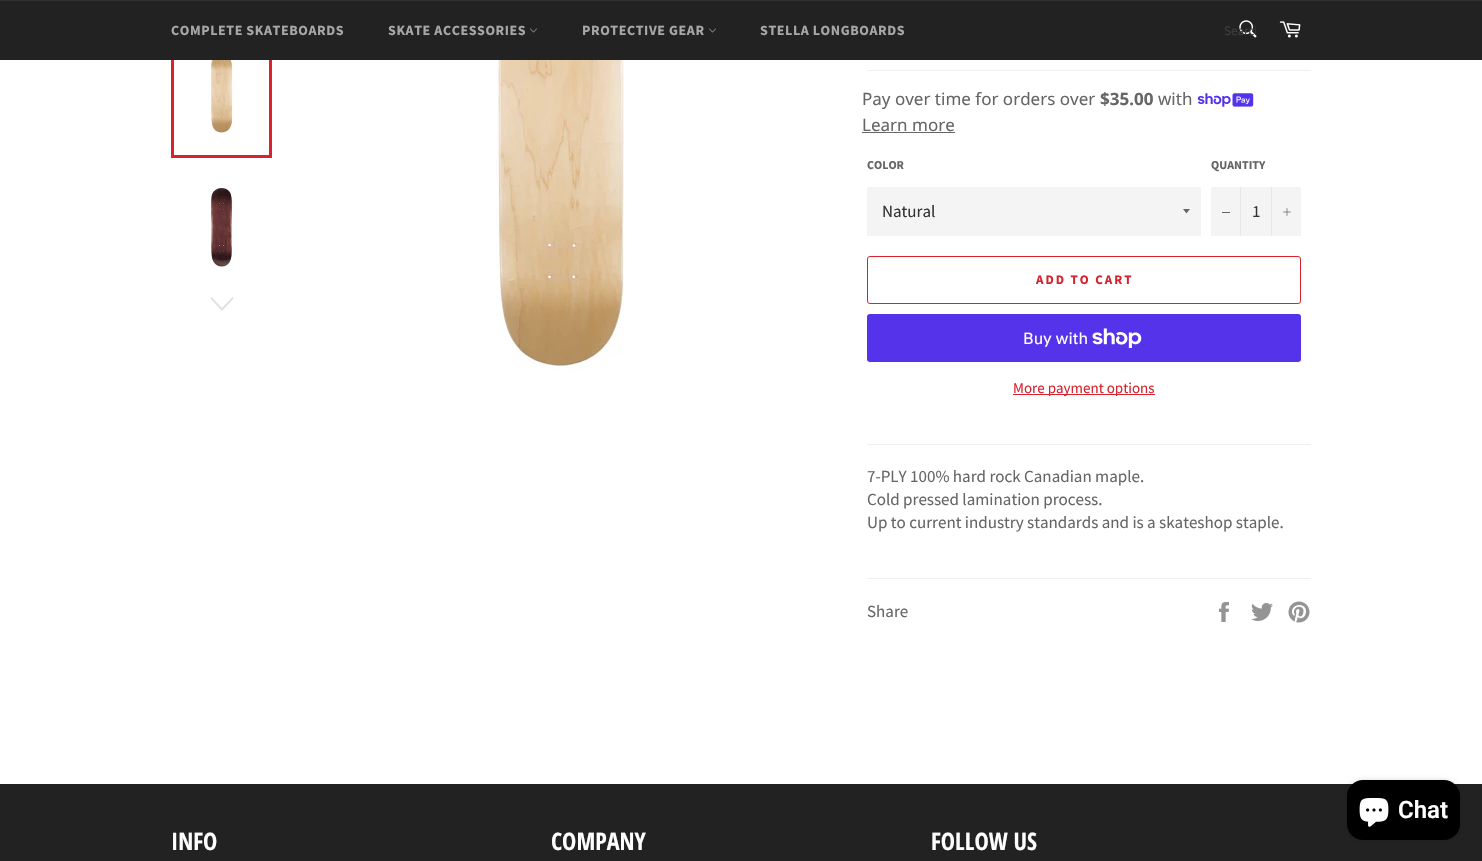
#include "include/core/SkBlurTypes.h"
#include "include/core/SkCanvas.h"
#include "include/core/SkData.h"
#include "include/core/SkFont.h"
#include "include/core/SkFontMgr.h"
#include "include/core/SkImage.h"
#include "include/core/SkMaskFilter.h"
#include "include/core/SkPaint.h"
#include "include/core/SkPathBuilder.h"
#include "include/core/SkTextBlob.h"
#include "include/effects/SkDashPathEffect.h"
#include "include/effects/SkGradientShader.h"
#include "include/utils/SkParsePath.h"

extern sk_sp<SkFontMgr> fontMgr;

void draw(SkCanvas* canvas) {
    SkPaint p;
    p.setAntiAlias(true);
    auto font = [&](const char* family, int weight, float size, bool italic = false) {
        SkFontStyle style(weight, SkFontStyle::kNormal_Width,
            italic ? SkFontStyle::kItalic_Slant : SkFontStyle::kUpright_Slant);
        SkFont result(fontMgr->matchFamilyStyle(family, style), size);
        result.setSubpixel(true);
        return result;
    };
    auto drawTracked = [&](const char* s, float x, float y, const SkFont& font, const SkPaint& ink, float letter, float word) {
        std::vector<SkGlyphID> glyphs(font.countText(s, strlen(s), SkTextEncoding::kUTF8));
        std::vector<float> xs(glyphs.size());
        font.textToGlyphs(s, strlen(s), SkTextEncoding::kUTF8, glyphs);
        font.getXPos(glyphs, xs, x);
        float extra = 0;
        for (size_t i = 0; i < glyphs.size(); i++) {
            xs[i] += extra;
            extra += letter + word * (glyphs[i] == font.unicharToGlyph(' '));
        }
        canvas->drawTextBlob(SkTextBlob::MakeFromPosHGlyphs(glyphs, xs, y, font), 0, 0, ink);
    };
    auto drawPhoto = [&](const char* path, float l, float t, float r, float b) {
        auto image = SkImages::DeferredFromEncodedData(SkData::MakeFromFileName(path));
        canvas->drawImageRect(image, SkRect::MakeLTRB(l, t, r, b), SkSamplingOptions());
    };
    canvas->clear(0xFFFFFFFF);
    drawPhoto("media/4.png", 210, 60, 234, 133);
    p.setStyle(SkPaint::kStroke_Style);
    p.setStrokeWidth(3);
    p.setColor(0xFFD8232F);
    canvas->drawRect(SkRect::MakeLTRB(172.5f, 29.5f, 270.5f, 156.5f), p);
    p.setStyle(SkPaint::kFill_Style);
    p.setColor(0xFF222222);
    canvas->drawRect(SkRect::MakeLTRB(0, 1, 1482, 60), p);
    p.setColor(0xFF2F2F2F);
    canvas->drawRect(SkRect::MakeLTRB(0, 0, 1482, 1), p);
    auto font1 = font("Source Sans Pro", 700, 14);
    p.setColor(0xFFA7A7A7);
    drawTracked("COMPLETE SKATEBOARDS", 171, 35, font1, p, 0.6f, 0);
    drawTracked("SKATE ACCESSORIES", 388, 35, font1, p, 0.6f, 0);
    drawPhoto("media/1.png", 530, 28, 537, 33);
    drawTracked("PROTECTIVE GEAR", 582, 35, font1, p, 0.6f, 0);
    drawPhoto("media/1.png", 709, 28, 716, 33);
    drawTracked("STELLA LONGBOARDS", 760, 35, font1, p, 0.6f, 0);
    drawPhoto("media/2.png", 1239, 20, 1257, 38);
    canvas->save();
    canvas->clipRect(SkRect::MakeLTRB(1224, 22, 1256, 39));
    auto font2 = font("Source Sans Pro", 400, 13);
    p.setColor(0xFF3E3E3E);
    canvas->drawString("Search", 1224, 35, font2, p);
    canvas->restore();
    drawPhoto("media/3.png", 1279, 21, 1301, 38);
    drawPhoto("media/5.png", 210, 188, 234, 268);
    p.setColor(0xFFE0E0E0);
    canvas->drawPath(SkPathBuilder().moveTo(232.5f, 297).lineTo(233.5f, 298.5f).lineTo(222, 311).lineTo(210.5f, 298.5f).lineTo(211.5f, 297).lineTo(222, 308).close().detach(), p);
    drawPhoto("media/6.png", 496, 60, 624, 372);
    p.setColor(0xFFF0F0F0);
    canvas->drawRect(SkRect::MakeLTRB(867, 70, 1311, 71), p);
    auto font3 = font("Noto Sans", 400, 17);
    p.setColor(0xFF666666);
    canvas->drawString("Pay over time for orders over", 862, 105, font3, p);
    auto font4 = font("Noto Sans", 700, 17);
    canvas->drawString("$35.00", 1100, 105, font4, p);
    canvas->drawString("with", 1158, 105, font3, p);
    drawPhoto("media/7.png", 1197, 93, 1254, 107);
    canvas->drawString("Learn more", 862, 131, font3, p);
    canvas->drawRect(SkRect::MakeLTRB(862, 132, 955, 133), p);
    auto font5 = font("Source Sans Pro", 700, 12);
    canvas->drawString("COLOR", 867, 169, font5, p);
    p.setColor(0xFFF4F4F4);
    canvas->drawRect(SkRect::MakeLTRB(867, 187, 1201, 236), p);
    p.setColor(0xFF666666);
    canvas->drawPath(SkPathBuilder().moveTo(1183, 209).cubicTo(1187.5f, 214.5f, 1185.5f, 214.5f, 1190, 209).close().detach(), p);
    auto font6 = font("Source Sans Pro", 400, 17);
    p.setColor(0xFF333333);
    canvas->drawString("Natural", 882, 217, font6, p);
    p.setColor(0xFF666666);
    canvas->drawString("QUANTITY", 1211, 169, font5, p);
    {
        const struct { float l, t, r, b; SkColor color; } items[] = {
            {1211, 187, 1301, 236, 0xFFF4F4F4},
            {1240, 187, 1241, 236, 0xFFE7E7E7},
            {1222, 212, 1230, 213, 0xFF666666},
        };
        for (auto [l, t, r, b, color] : items) {
            p.setColor(color);
            canvas->drawRect(SkRect::MakeLTRB(l, t, r, b), p);
        }
    }
    p.setColor(0xFF333333);
    canvas->drawString("1", 1252, 217, font6, p);
    p.setColor(0xFFE7E7E7);
    canvas->drawRect(SkRect::MakeLTRB(1271, 187, 1272, 236), p);
    drawPhoto("media/8.png", 1283, 208, 1291, 216);
    p.setStyle(SkPaint::kStroke_Style);
    p.setStrokeWidth(1);
    p.setColor(0xFFD8232F);
    canvas->drawRoundRect(SkRect::MakeLTRB(867.5f, 256.5f, 1300.5f, 303.5f), 2.5f, 2.5f, p);
    auto font7 = font("Source Sans Pro", 700, 13);
    p.setStyle(SkPaint::kFill_Style);
    drawTracked("ADD TO CART", 1036, 284, font7, p, 2, 0);
    p.setColor(0xFF5433EB);
    canvas->drawRoundRect(SkRect::MakeLTRB(867, 314, 1301, 362), 3, 3, p);
    auto font8 = font("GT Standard", 400, 16);
    p.setColor(0xFFFFFFFF);
    canvas->drawString("Buy with", 1023, 344, font8, p);
    drawPhoto("media/9.png", 1092, 328, 1142, 348);
    p.setColor(0xFFD8232F);
    canvas->drawRect(SkRect::MakeLTRB(1013, 394, 1155, 395), p);
    auto font9 = font("Source Sans Pro", 400, 15);
    canvas->drawString("More payment options", 1013, 393, font9, p);
    p.setColor(0xFFF0F0F0);
    canvas->drawRect(SkRect::MakeLTRB(867, 444, 1311, 445), p);
    p.setColor(0xFF666666);
    {
        const struct { const char* s; float x, y; } items[] = {
            {"7-PLY 100% hard rock Canadian maple.", 867, 482},
            {"Cold pressed lamination process.", 867, 505},
            {"Up to current industry standards and is a skateshop staple.", 867, 528},
        };
        for (auto [s, x, y] : items) {
            canvas->drawString(s, x, y, font6, p);
        }
    }
    p.setColor(0xFFF0F0F0);
    canvas->drawRect(SkRect::MakeLTRB(867, 578, 1311, 579), p);
    p.setColor(0xFF666666);
    canvas->drawString("Share", 867, 617, font6, p);
    drawPhoto("media/10.png", 1219, 602, 1229, 622);
    drawPhoto("media/11.png", 1251, 603, 1273, 621);
    drawPhoto("media/12.png", 1288, 601, 1310, 623);
    p.setColor(0xFF222222);
    canvas->drawRect(SkRect::MakeLTRB(0, 784, 1482, 861), p);
    auto font10 = font("Open Sans Condensed", 700, 24);
    p.setColor(0xFFFFFFFF);
    {
        const struct { const char* s; float x, y; } items[] = {
            {"INFO", 171, 850},
            {"COMPANY", 551, 850},
            {"FOLLOW US", 931, 850},
        };
        for (auto [s, x, y] : items) {
            canvas->drawString(s, x, y, font10, p);
        }
    }
    p.setColor(0x26000000);
    p.setMaskFilter(SkMaskFilter::MakeBlur(kNormal_SkBlurStyle, 2.5f));
    canvas->drawRoundRect(SkRect::MakeLTRB(1347, 780, 1460, 840), 16, 16, p);
    p.setMaskFilter(nullptr);
    p.setColor(0xFF000000);
    canvas->drawRoundRect(SkRect::MakeLTRB(1347, 780, 1460, 840), 16, 16, p);
    drawPhoto("media/13.png", 1359, 798, 1389, 827);
    auto font11 = font("Roboto", 600, 24);
    p.setColor(0xFFFFFFFF);
    canvas->drawString("Chat", 1398, 818, font11, p);
}
